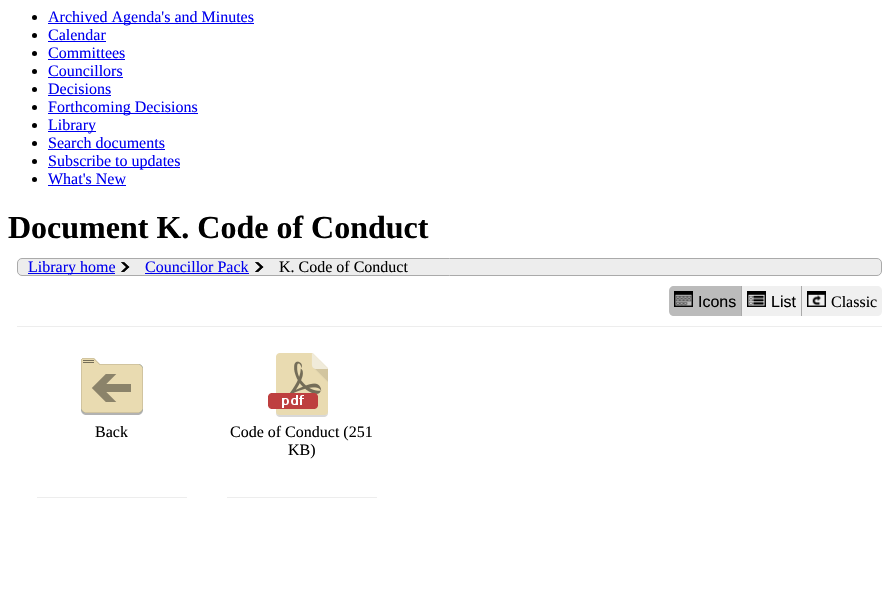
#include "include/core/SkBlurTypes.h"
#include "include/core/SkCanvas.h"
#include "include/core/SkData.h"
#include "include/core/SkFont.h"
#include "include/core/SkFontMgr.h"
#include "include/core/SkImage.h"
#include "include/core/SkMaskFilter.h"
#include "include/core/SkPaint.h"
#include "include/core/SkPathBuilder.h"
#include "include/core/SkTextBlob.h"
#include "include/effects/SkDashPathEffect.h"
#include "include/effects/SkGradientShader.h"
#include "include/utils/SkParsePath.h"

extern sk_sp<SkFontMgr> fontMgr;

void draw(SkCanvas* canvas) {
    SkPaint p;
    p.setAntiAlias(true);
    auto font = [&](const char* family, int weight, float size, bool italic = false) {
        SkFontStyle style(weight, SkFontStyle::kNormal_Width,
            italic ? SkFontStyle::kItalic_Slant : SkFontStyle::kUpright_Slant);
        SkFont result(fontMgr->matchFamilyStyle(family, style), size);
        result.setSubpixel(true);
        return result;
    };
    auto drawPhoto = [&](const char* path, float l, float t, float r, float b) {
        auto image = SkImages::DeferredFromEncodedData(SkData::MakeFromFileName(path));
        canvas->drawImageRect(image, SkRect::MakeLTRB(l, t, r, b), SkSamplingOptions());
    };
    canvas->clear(0xFFFFFFFF);
    p.setColor(0xFF000000);
    canvas->drawCircle(34.5f, 17.5f, 2.5f, p);
    p.setColor(0xFF0000EE);
    canvas->drawRect(SkRect::MakeLTRB(48, 23, 254, 24), p);
    auto font1 = font("Liberation Serif", 400, 16);
    canvas->drawString("Archived Agenda's and Minutes", 48, 22, font1, p);
    p.setColor(0xFF000000);
    canvas->drawCircle(34.5f, 35.5f, 2.5f, p);
    p.setColor(0xFF0000EE);
    canvas->drawString("Calendar", 48, 40, font1, p);
    canvas->drawRect(SkRect::MakeLTRB(48, 41, 106, 42), p);
    p.setColor(0xFF000000);
    canvas->drawCircle(34.5f, 53.5f, 2.5f, p);
    p.setColor(0xFF0000EE);
    canvas->drawString("Committees", 48, 58, font1, p);
    canvas->drawRect(SkRect::MakeLTRB(48, 59, 125, 60), p);
    p.setColor(0xFF000000);
    canvas->drawCircle(34.5f, 71.5f, 2.5f, p);
    p.setColor(0xFF0000EE);
    canvas->drawString("Councillors", 48, 76, font1, p);
    canvas->drawRect(SkRect::MakeLTRB(48, 77, 123, 78), p);
    p.setColor(0xFF000000);
    canvas->drawCircle(34.5f, 89.5f, 2.5f, p);
    p.setColor(0xFF0000EE);
    canvas->drawString("Decisions", 48, 94, font1, p);
    canvas->drawRect(SkRect::MakeLTRB(48, 95, 111, 96), p);
    p.setColor(0xFF000000);
    canvas->drawCircle(34.5f, 107.5f, 2.5f, p);
    p.setColor(0xFF0000EE);
    canvas->drawRect(SkRect::MakeLTRB(48, 113, 198, 114), p);
    canvas->drawString("Forthcoming Decisions", 48, 112, font1, p);
    p.setColor(0xFF000000);
    canvas->drawCircle(34.5f, 125.5f, 2.5f, p);
    p.setColor(0xFF0000EE);
    canvas->drawRect(SkRect::MakeLTRB(48, 131, 96, 132), p);
    canvas->drawString("Library", 48, 130, font1, p);
    p.setColor(0xFF000000);
    canvas->drawCircle(34.5f, 143.5f, 2.5f, p);
    p.setColor(0xFF0000EE);
    canvas->drawString("Search documents", 48, 148, font1, p);
    canvas->drawRect(SkRect::MakeLTRB(48, 149, 165, 150), p);
    p.setColor(0xFF000000);
    canvas->drawCircle(34.5f, 161.5f, 2.5f, p);
    p.setColor(0xFF0000EE);
    canvas->drawRect(SkRect::MakeLTRB(48, 167, 180, 168), p);
    canvas->drawString("Subscribe to updates", 48, 166, font1, p);
    p.setColor(0xFF000000);
    canvas->drawCircle(34.5f, 179.5f, 2.5f, p);
    p.setColor(0xFF0000EE);
    canvas->drawString("What's New", 48, 184, font1, p);
    canvas->drawRect(SkRect::MakeLTRB(48, 185, 126, 186), p);
    auto font2 = font("Liberation Serif", 700, 32);
    p.setColor(0xFF000000);
    canvas->drawString("Document K. Code of Conduct", 8, 238, font2, p);
    p.setColor(0xFFEDEDED);
    canvas->drawRoundRect(SkRect::MakeLTRB(17.5f, 258.5f, 881.5f, 275.5f), 4.5f, 4.5f, p);
    p.setStyle(SkPaint::kStroke_Style);
    p.setStrokeWidth(1);
    p.setColor(0xFFAAAAAA);
    canvas->drawRoundRect(SkRect::MakeLTRB(17.5f, 258.5f, 881.5f, 275.5f), 4.5f, 4.5f, p);
    p.setStyle(SkPaint::kFill_Style);
    p.setColor(0xFF0000EE);
    canvas->drawRect(SkRect::MakeLTRB(28, 273, 115, 274), p);
    canvas->save();
    canvas->clipPath(SkPathBuilder().moveTo(22, 259).lineTo(877, 259).cubicTo(879, 259, 881, 261, 881, 263).lineTo(881, 271).cubicTo(881, 273, 879, 275, 877, 275).lineTo(22, 275).cubicTo(20, 275, 18, 273, 18, 271).lineTo(18, 263).cubicTo(18, 261, 20, 259, 22, 259).close().detach(), true);
    canvas->drawString("Library home", 28, 272, font1, p);
    canvas->restore();
    drawPhoto("media/1.png", 121, 262, 130, 272);
    canvas->drawString("Councillor Pack", 145, 272, font1, p);
    canvas->drawRect(SkRect::MakeLTRB(145, 273, 249, 274), p);
    drawPhoto("media/1.png", 255, 262, 264, 272);
    p.setColor(0xFF000000);
    canvas->drawString("K. Code of Conduct", 279, 272, font1, p);
    p.setColor(0xFFBBBBBB);
    canvas->drawPath(SkPathBuilder().moveTo(674, 286).lineTo(742, 286).lineTo(742, 316).lineTo(674, 316).cubicTo(671, 316, 669, 314, 669, 311).lineTo(669, 291).cubicTo(669, 288, 671, 286, 674, 286).close().detach(), p);
    p.setColor(0xFFAAAAAA);
    canvas->drawRect(SkRect::MakeLTRB(741, 286, 742, 316), p);
    drawPhoto("media/2.png", 674, 291, 693, 307);
    auto font3 = font("Liberation Sans", 400, 16);
    p.setColor(0xFF000000);
    canvas->drawString("Icons", 698, 307, font3, p);
    p.setColor(0xFFF0F0F0);
    canvas->drawRect(SkRect::MakeLTRB(742, 286, 801, 316), p);
    drawPhoto("media/3.png", 747, 291, 766, 307);
    p.setColor(0xFF000000);
    canvas->drawString("List", 771, 307, font3, p);
    p.setColor(0xFFF0F0F0);
    canvas->drawPath(SkPathBuilder().moveTo(801, 286).lineTo(877, 286).cubicTo(880, 286, 882, 288, 882, 291).lineTo(882, 311).cubicTo(882, 314, 880, 316, 877, 316).lineTo(801, 316).close().detach(), p);
    p.setColor(0xFFAAAAAA);
    canvas->drawRect(SkRect::MakeLTRB(801, 286, 802, 316), p);
    drawPhoto("media/4.png", 807, 291, 826, 307);
    p.setColor(0xFF000000);
    canvas->drawString("Classic", 831, 307, font1, p);
    p.setColor(0xFFEDEDED);
    canvas->drawRect(SkRect::MakeLTRB(17, 326, 882, 327), p);
    canvas->drawRect(SkRect::MakeLTRB(37, 497, 187, 498), p);
    drawPhoto("media/5.png", 81, 358, 143, 415);
    p.setColor(0xFF000000);
    canvas->drawString("Back", 95, 437, font1, p);
    p.setColor(0xFFEDEDED);
    canvas->drawRect(SkRect::MakeLTRB(227, 497, 377, 498), p);
    drawPhoto("media/6.png", 268, 353, 328, 417);
    p.setColor(0xFF000000);
    canvas->drawString("Code of Conduct (251", 230, 437, font1, p);
    canvas->drawString("KB)", 288, 455, font1, p);
}
